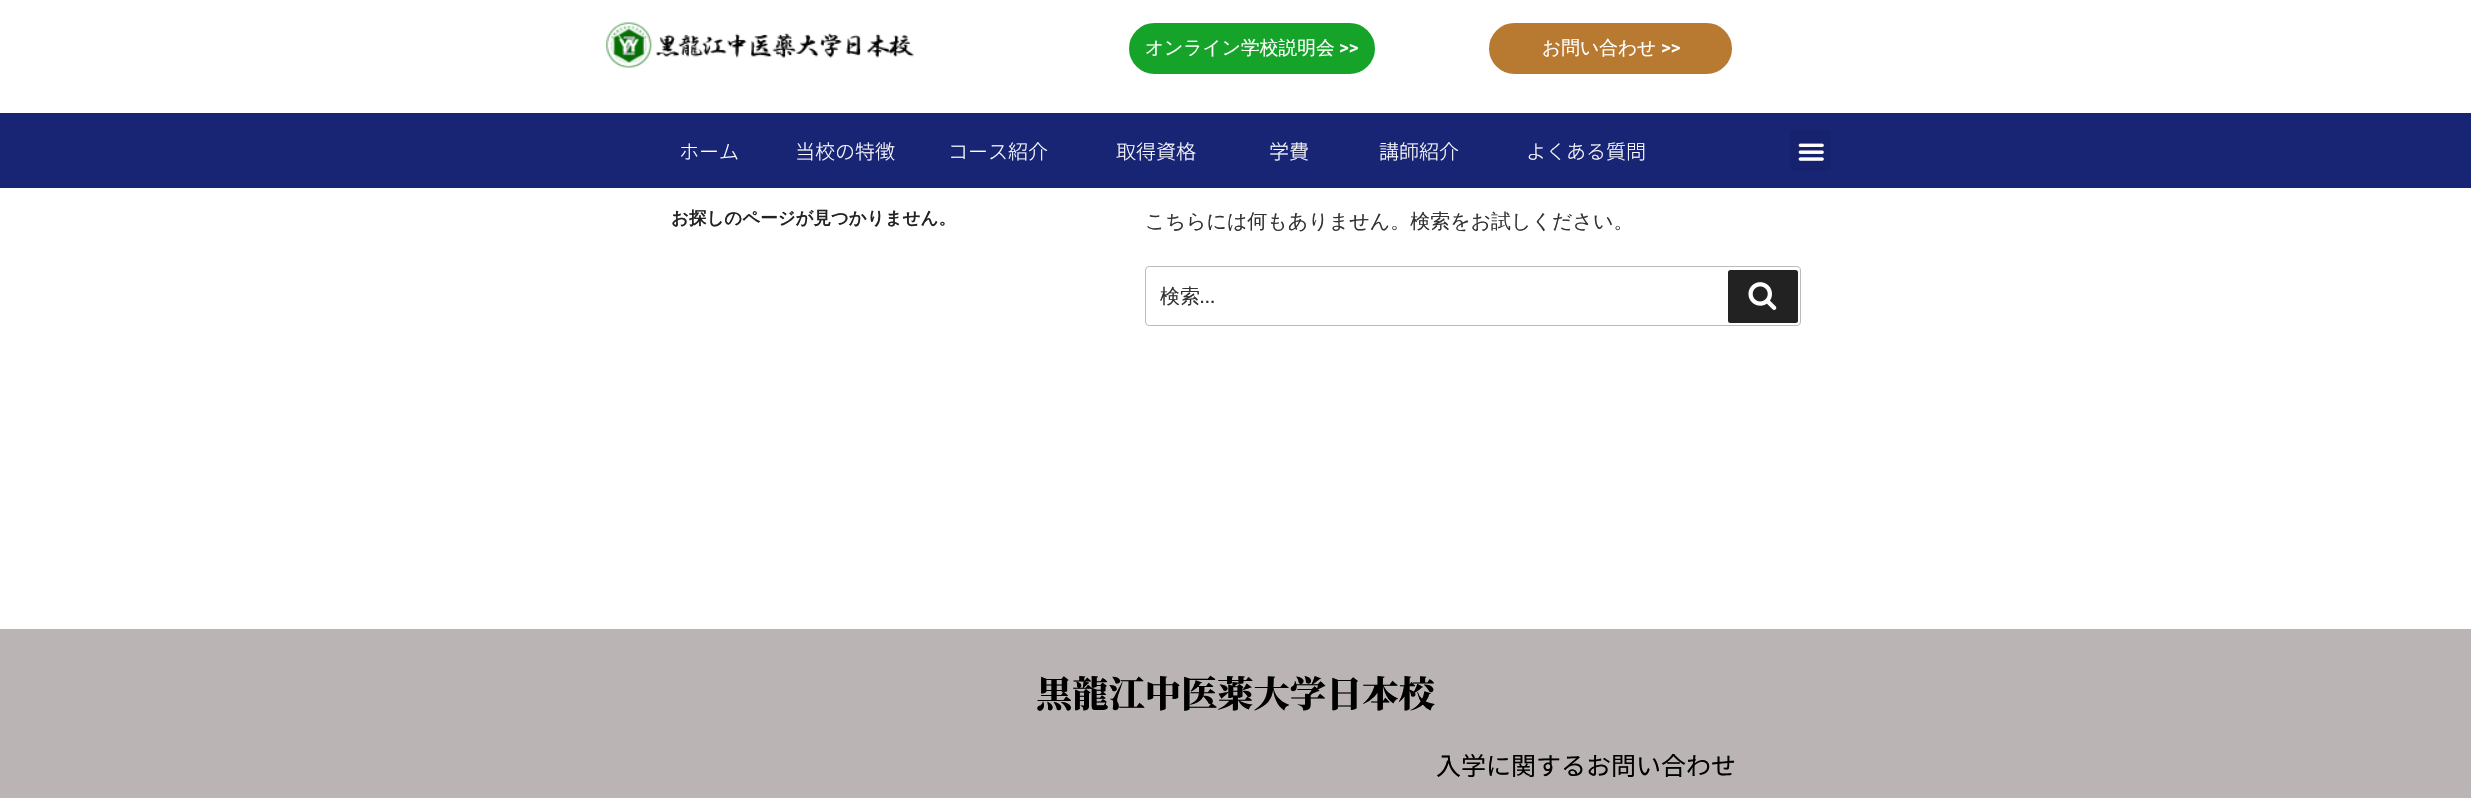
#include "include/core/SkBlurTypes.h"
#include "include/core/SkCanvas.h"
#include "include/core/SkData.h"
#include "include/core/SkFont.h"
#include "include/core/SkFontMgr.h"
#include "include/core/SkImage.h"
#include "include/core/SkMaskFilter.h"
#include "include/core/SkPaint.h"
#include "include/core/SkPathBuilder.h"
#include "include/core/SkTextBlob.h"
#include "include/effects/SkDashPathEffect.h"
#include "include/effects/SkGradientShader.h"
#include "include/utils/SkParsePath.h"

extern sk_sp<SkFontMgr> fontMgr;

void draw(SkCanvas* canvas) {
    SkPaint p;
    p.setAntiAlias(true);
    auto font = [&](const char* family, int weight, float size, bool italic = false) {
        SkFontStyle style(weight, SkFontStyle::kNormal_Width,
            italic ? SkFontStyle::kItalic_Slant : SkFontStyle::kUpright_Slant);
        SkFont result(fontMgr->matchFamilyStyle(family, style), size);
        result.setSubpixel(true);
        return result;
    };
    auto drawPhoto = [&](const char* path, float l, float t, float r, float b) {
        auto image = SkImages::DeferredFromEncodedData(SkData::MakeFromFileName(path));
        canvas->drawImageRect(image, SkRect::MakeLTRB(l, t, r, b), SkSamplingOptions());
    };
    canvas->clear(0xFFFFFFFF);
    drawPhoto("media/1.png", 606, 22, 914, 68);
    p.setColor(0xFF15A429);
    canvas->drawRoundRect(SkRect::MakeLTRB(1127, 21, 1377, 76), 27.5f, 27.5f, p);
    p.setStyle(SkPaint::kStroke_Style);
    p.setStrokeWidth(4);
    p.setColor(0xFFFFFFFF);
    canvas->drawRoundRect(SkRect::MakeLTRB(1127, 21, 1377, 76), 27.5f, 27.5f, p);
    auto font1 = font("WenQuanYi Zen Hei", 500, 18.75f);
    p.setStyle(SkPaint::kFill_Style);
    canvas->drawString("オンライン学校説明会", 1145, 54, font1, p);
    auto font2 = font("Roboto", 500, 18.75f);
    canvas->drawString(">>", 1339, 54, font2, p);
    p.setColor(0xFFB87930);
    canvas->drawRoundRect(SkRect::MakeLTRB(1487, 21, 1734, 76), 27.5f, 27.5f, p);
    p.setStyle(SkPaint::kStroke_Style);
    p.setColor(0xFFFFFFFF);
    canvas->drawRoundRect(SkRect::MakeLTRB(1487, 21, 1734, 76), 27.5f, 27.5f, p);
    p.setStyle(SkPaint::kFill_Style);
    canvas->drawString("お問い合わせ", 1542, 54, font1, p);
    canvas->drawString(">>", 1661, 54, font2, p);
    p.setColor(0xFF182474);
    canvas->drawRect(SkRect::MakeLTRB(0, 113, 2471, 188), p);
    auto font3 = font("Noto Sans JP", 300, 20);
    p.setColor(0xFFFFFFFF);
    {
        const struct { const char* s; float x, y; } items[] = {
            {"ホーム", 679, 159},
            {"当校の特徴", 795, 159},
            {"コース紹介", 948, 159},
            {"取得資格", 1116, 159},
            {"学費", 1269, 159},
            {"講師紹介", 1379, 159},
            {"よくある質問", 1526, 159},
        };
        for (auto [s, x, y] : items) {
            canvas->drawString(s, x, y, font3, p);
        }
    }
    p.setColor(0xFF17226E);
    canvas->drawRoundRect(SkRect::MakeLTRB(1790, 130, 1831, 171), 4, 4, p);
    drawPhoto("media/2.png", 1798, 143, 1824, 161);
    auto font4 = font("WenQuanYi Zen Hei", 700, 17.5f);
    p.setColor(0xFF222222);
    canvas->drawString("お探しのページが見つかりません。", 671, 224, font4, p);
    auto font5 = font("WenQuanYi Zen Hei", 500, 20);
    p.setColor(0xFF333333);
    canvas->drawString("こちらには何もありません。検索をお試しください。", 1145, 228, font5, p);
    p.setStyle(SkPaint::kStroke_Style);
    p.setStrokeWidth(1);
    p.setColor(0xFFBBBBBB);
    canvas->drawRoundRect(SkRect::MakeLTRB(1145.5f, 266.5f, 1800.5f, 325.5f), 3.5f, 3.5f, p);
    p.setStyle(SkPaint::kFill_Style);
    p.setColor(0xFF333333);
    canvas->drawString("検索", 1160, 303, font5, p);
    auto font6 = font("Libre Franklin", 400, 20);
    canvas->drawString("…", 1200, 303, font6, p);
    p.setColor(0xFF222222);
    canvas->drawRoundRect(SkRect::MakeLTRB(1728, 270, 1798, 323), 2.5f, 2.5f, p);
    drawPhoto("media/3.png", 1748, 282, 1777, 310);
    p.setColor(0xFFBAB4B4);
    canvas->drawRect(SkRect::MakeLTRB(0, 629, 2471, 798), p);
    auto font7 = font("Noto Serif JP", 900, 36.25f);
    p.setColor(0xFF000000);
    canvas->drawString("黒龍江中医薬大学日本校", 1036, 707, font7, p);
    auto font8 = font("Noto Sans JP", 400, 25);
    canvas->drawString("入学に関するお問い合わせ", 1436, 775, font8, p);
}
